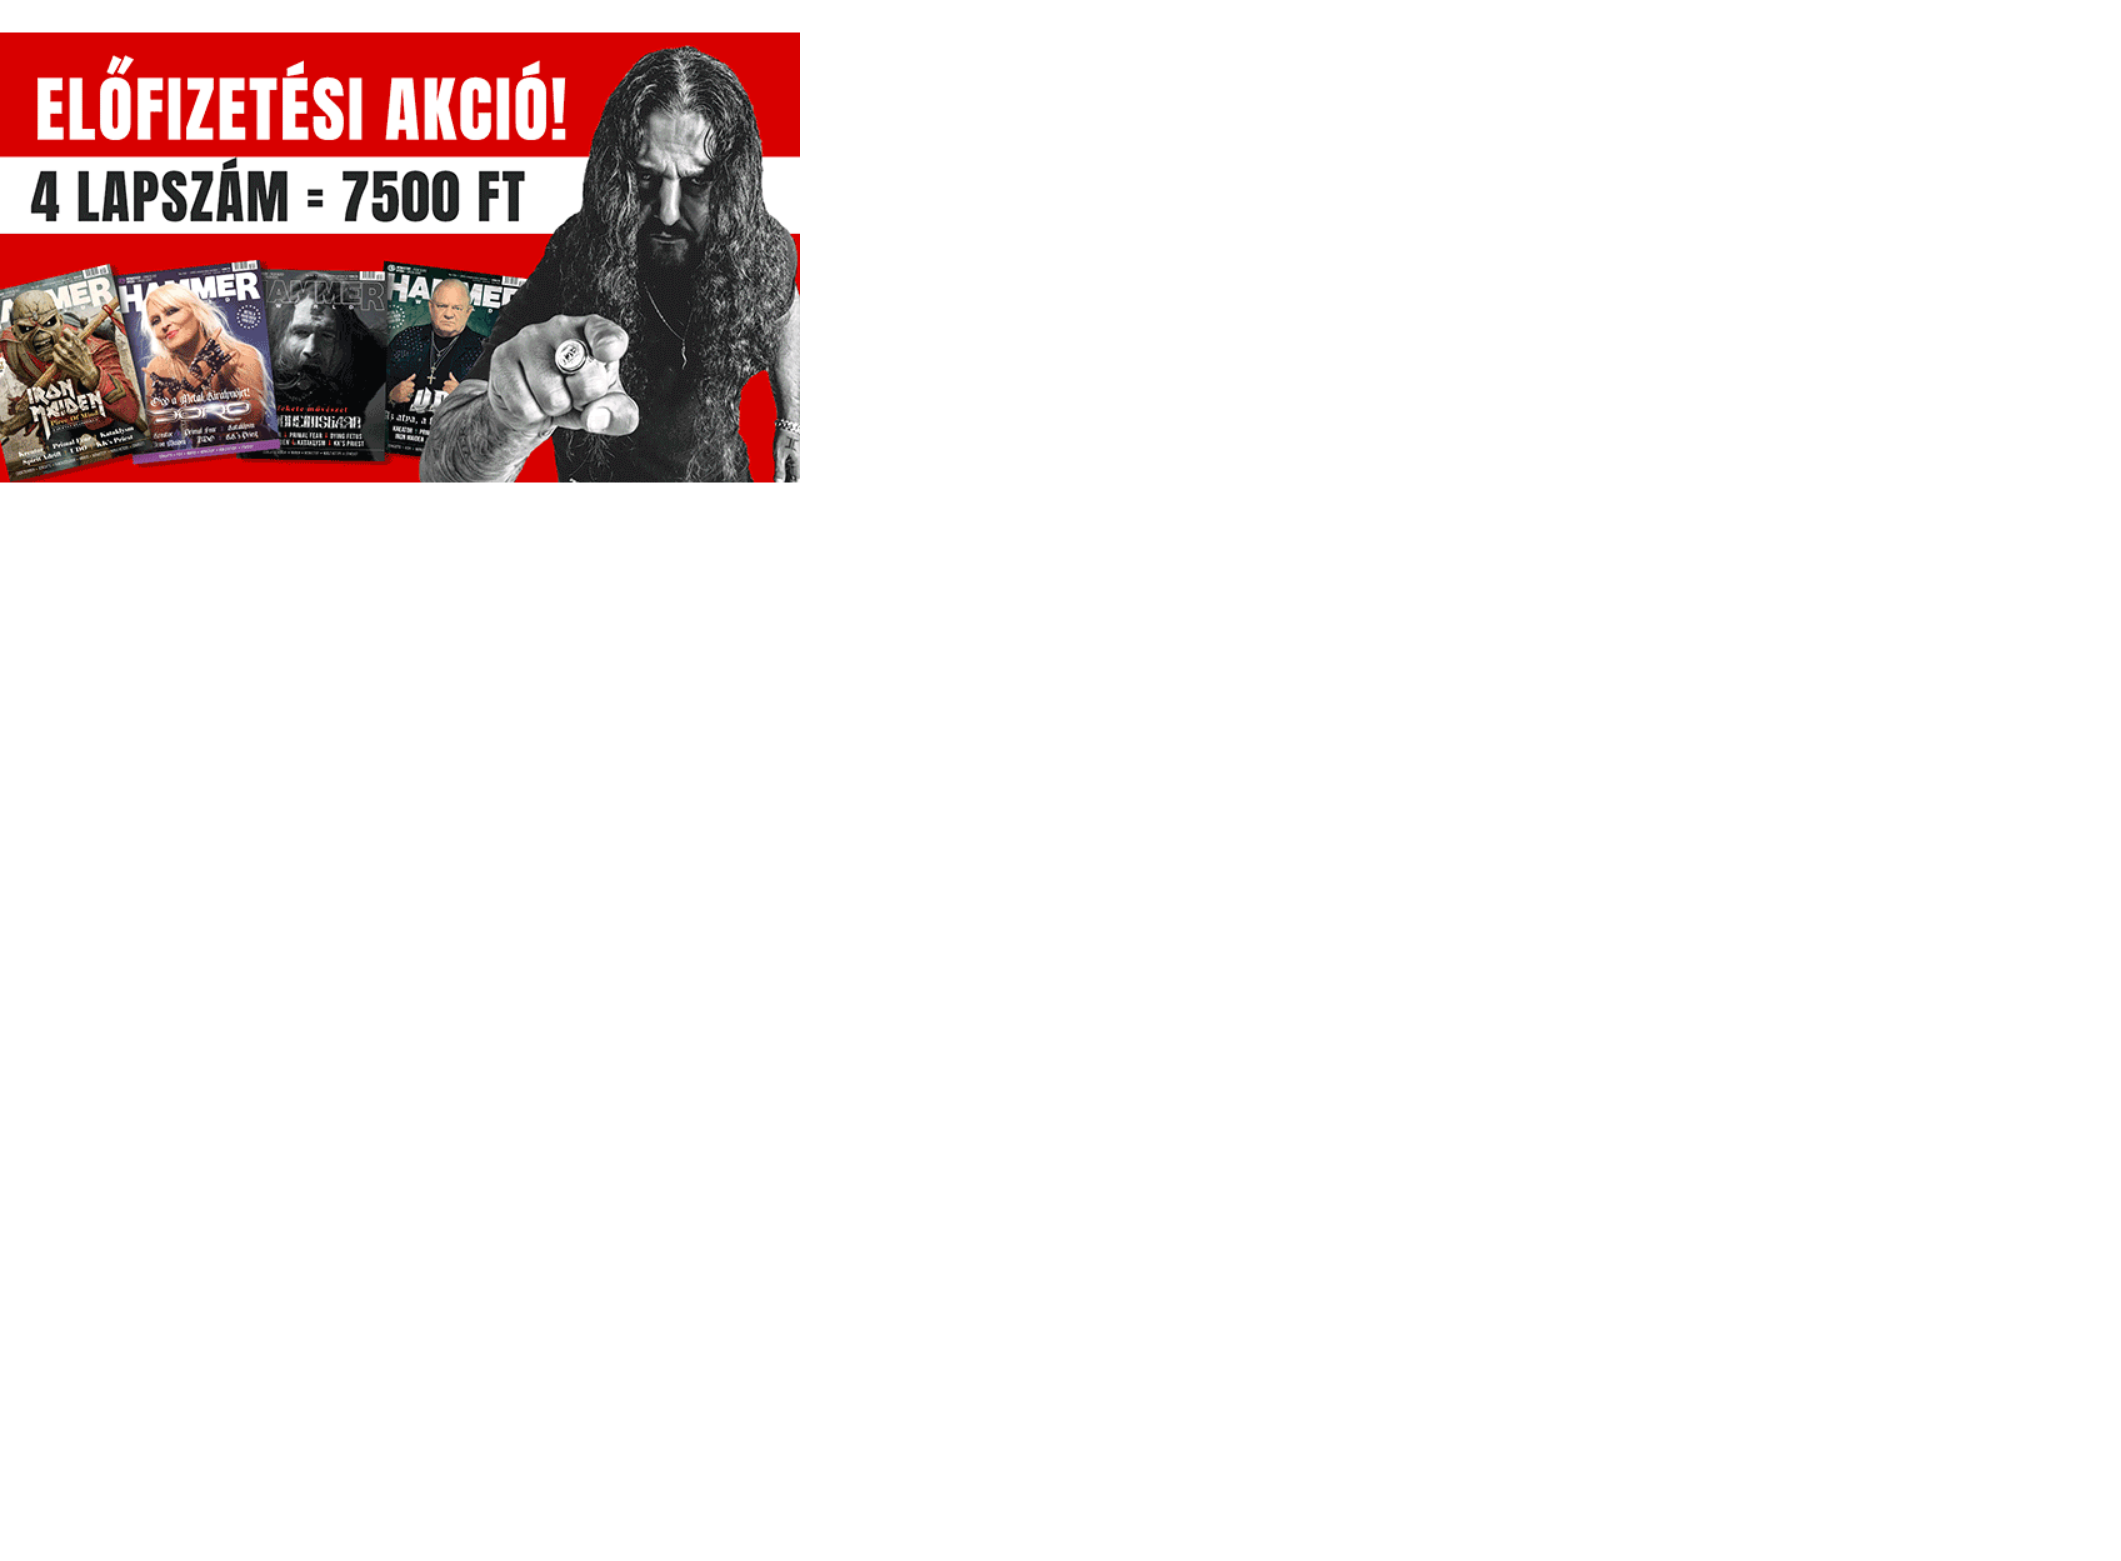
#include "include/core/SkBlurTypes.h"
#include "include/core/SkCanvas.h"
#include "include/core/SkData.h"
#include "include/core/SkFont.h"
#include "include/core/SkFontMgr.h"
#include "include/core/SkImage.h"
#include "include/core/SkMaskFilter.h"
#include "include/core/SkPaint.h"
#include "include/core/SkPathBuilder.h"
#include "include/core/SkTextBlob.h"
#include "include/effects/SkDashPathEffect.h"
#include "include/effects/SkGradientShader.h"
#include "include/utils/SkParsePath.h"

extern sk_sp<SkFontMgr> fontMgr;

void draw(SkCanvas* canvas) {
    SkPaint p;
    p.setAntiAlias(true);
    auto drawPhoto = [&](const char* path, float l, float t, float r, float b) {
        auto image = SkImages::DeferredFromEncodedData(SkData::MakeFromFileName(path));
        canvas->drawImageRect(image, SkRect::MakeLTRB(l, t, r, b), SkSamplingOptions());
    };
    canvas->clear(0xFFFFFFFF);
    drawPhoto("media/1.png", 0, 32, 800, 483);
}
